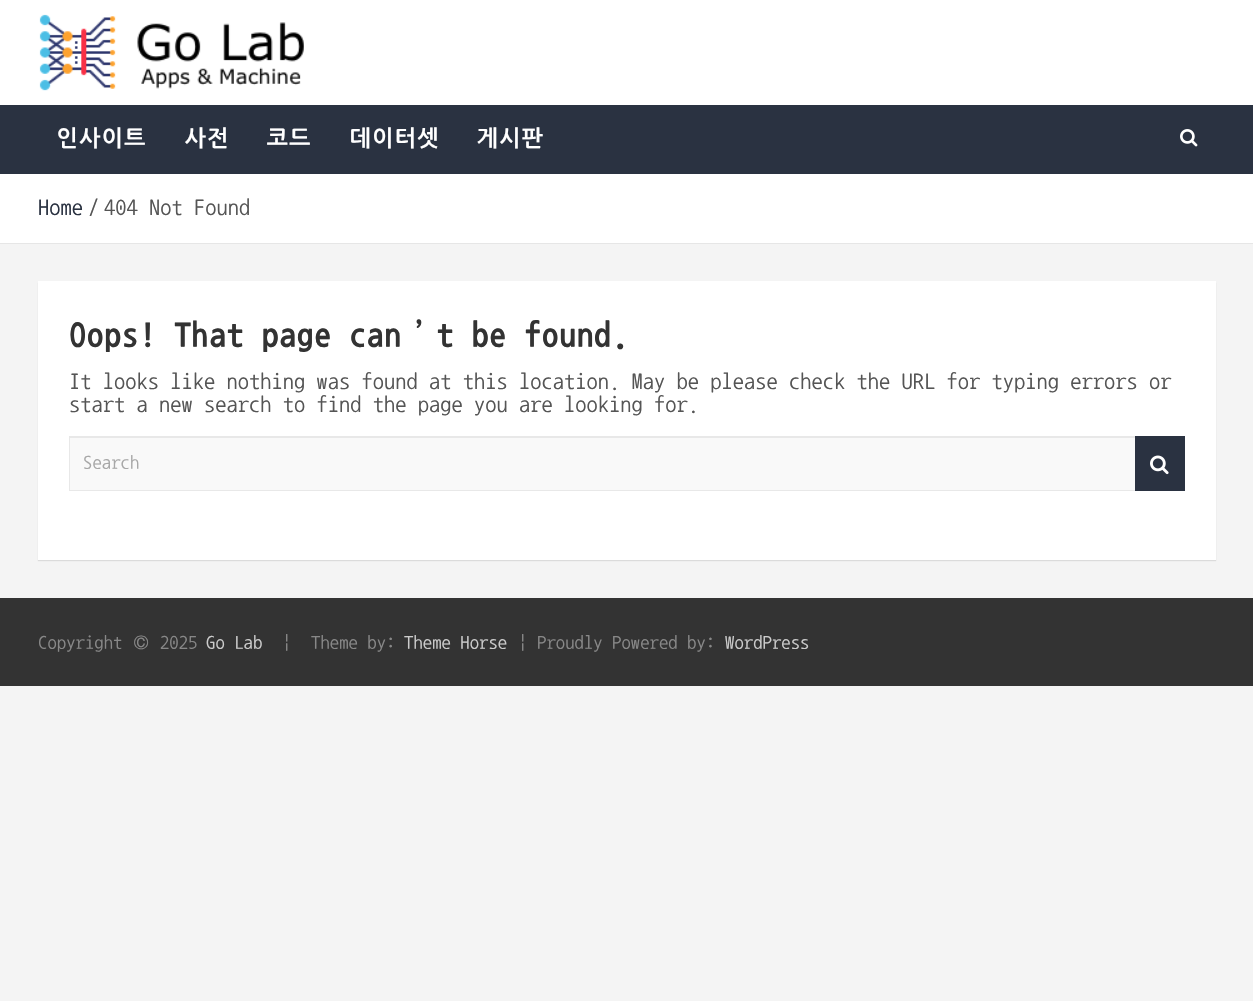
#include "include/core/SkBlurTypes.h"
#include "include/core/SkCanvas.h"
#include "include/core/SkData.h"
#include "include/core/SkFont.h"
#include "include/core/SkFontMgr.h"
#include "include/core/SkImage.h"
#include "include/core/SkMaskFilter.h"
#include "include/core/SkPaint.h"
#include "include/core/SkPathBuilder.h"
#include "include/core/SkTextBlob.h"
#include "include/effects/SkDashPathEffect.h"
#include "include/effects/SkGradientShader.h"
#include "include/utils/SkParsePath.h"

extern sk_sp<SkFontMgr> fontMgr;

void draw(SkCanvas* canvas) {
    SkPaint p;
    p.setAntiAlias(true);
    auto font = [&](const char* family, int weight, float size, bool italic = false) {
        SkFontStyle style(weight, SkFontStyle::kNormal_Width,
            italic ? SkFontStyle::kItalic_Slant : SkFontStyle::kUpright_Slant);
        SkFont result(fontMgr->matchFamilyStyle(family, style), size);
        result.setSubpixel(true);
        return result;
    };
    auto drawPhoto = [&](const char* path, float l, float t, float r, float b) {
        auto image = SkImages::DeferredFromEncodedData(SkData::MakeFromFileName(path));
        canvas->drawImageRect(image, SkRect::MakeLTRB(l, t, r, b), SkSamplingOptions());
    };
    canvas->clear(0xFFF4F4F4);
    p.setColor(0xFFFFFFFF);
    canvas->drawRect(SkRect::MakeLTRB(0, 0, 1253, 105), p);
    drawPhoto("media/1.png", 39, 14, 304, 91);
    p.setColor(0xFF2A3241);
    canvas->drawRect(SkRect::MakeLTRB(0, 105, 1253, 174), p);
    auto font1 = font("NanumGothicCoding", 700, 22.5f);
    p.setColor(0xFFFFFFFF);
    {
        const struct { const char* s; float x, y; } items[] = {
            {"인사이트", 56, 145},
            {"사전", 184, 145},
            {"코드", 266, 145},
            {"데이터셋", 349, 145},
            {"게시판", 476, 145},
        };
        for (auto [s, x, y] : items) {
            canvas->drawString(s, x, y, font1, p);
        }
    }
    drawPhoto("media/2.png", 1180, 129, 1198, 147);
    canvas->drawRect(SkRect::MakeLTRB(0, 174, 1253, 243), p);
    p.setColor(0xFFE6E6E6);
    canvas->drawRect(SkRect::MakeLTRB(0, 243, 1253, 244), p);
    auto font2 = font("NanumGothicCoding", 400, 22.5f);
    p.setColor(0xFF2A3241);
    canvas->drawString("Home", 38, 214, font2, p);
    p.setColor(0xFF555555);
    canvas->drawString("/", 88, 214, font2, p);
    canvas->drawString("404 Not Found", 104, 214, font2, p);
    p.setColor(0x1A000000);
    p.setMaskFilter(SkMaskFilter::MakeBlur(kNormal_SkBlurStyle, 0.5f));
    canvas->drawRect(SkRect::MakeLTRB(38, 283, 1216, 561), p);
    p.setMaskFilter(nullptr);
    p.setColor(0xFFFFFFFF);
    canvas->drawRect(SkRect::MakeLTRB(38, 281, 1216, 560), p);
    auto font3 = font("NanumGothicCoding", 700, 35);
    p.setColor(0xFF333333);
    canvas->drawString("Oops! That page can’t be found.", 69, 345, font3, p);
    p.setColor(0xFF555555);
    canvas->drawString("It looks like nothing was found at this location. May be please check the URL for typing errors or", 69, 388, font2, p);
    canvas->drawString("start a new search to find the page you are looking for.", 69, 411, font2, p);
    p.setColor(0xFFF9F9F9);
    canvas->drawRect(SkRect::MakeLTRB(70, 438, 1135, 490), p);
    p.setColor(0xFFE8E8E8);
    canvas->drawPath(SkPathBuilder().moveTo(69, 436).lineTo(1135, 436).lineTo(1135, 438).lineTo(70, 438).close().detach(), p);
    canvas->drawPath(SkPathBuilder().moveTo(1135, 491).lineTo(69, 491).lineTo(70, 490).lineTo(1135, 490).close().detach(), p);
    p.setColor(0x17000000);
    canvas->drawPath(SkPathBuilder().moveTo(69, 491).lineTo(69, 436).lineTo(70, 438).lineTo(70, 490).close().detach(), p);
    auto font4 = font("NanumGothicCoding", 400, 18.75f);
    p.setColor(0xFFA7A7A7);
    canvas->drawString("Search", 83, 468, font4, p);
    p.setColor(0xFF2A3241);
    canvas->drawRect(SkRect::MakeLTRB(1135, 436, 1185, 491), p);
    drawPhoto("media/3.png", 1150, 455, 1169, 475);
    p.setColor(0xFF333333);
    canvas->drawRect(SkRect::MakeLTRB(0, 598, 1253, 686), p);
    p.setColor(0xFF888888);
    canvas->drawString("Copyright © 2025", 38, 648, font4, p);
    p.setColor(0xFFCCCCCC);
    canvas->drawString("Go Lab", 206, 648, font4, p);
    p.setColor(0xFF888888);
    canvas->drawString("|", 282, 648, font4, p);
    canvas->drawString("Theme by:", 311, 648, font4, p);
    p.setColor(0xFFCCCCCC);
    canvas->drawString("Theme Horse", 404, 648, font4, p);
    p.setColor(0xFF888888);
    canvas->drawString("|", 518, 648, font4, p);
    canvas->drawString("Proudly Powered by:", 537, 648, font4, p);
    p.setColor(0xFFCCCCCC);
    canvas->drawString("WordPress", 725, 648, font4, p);
}
